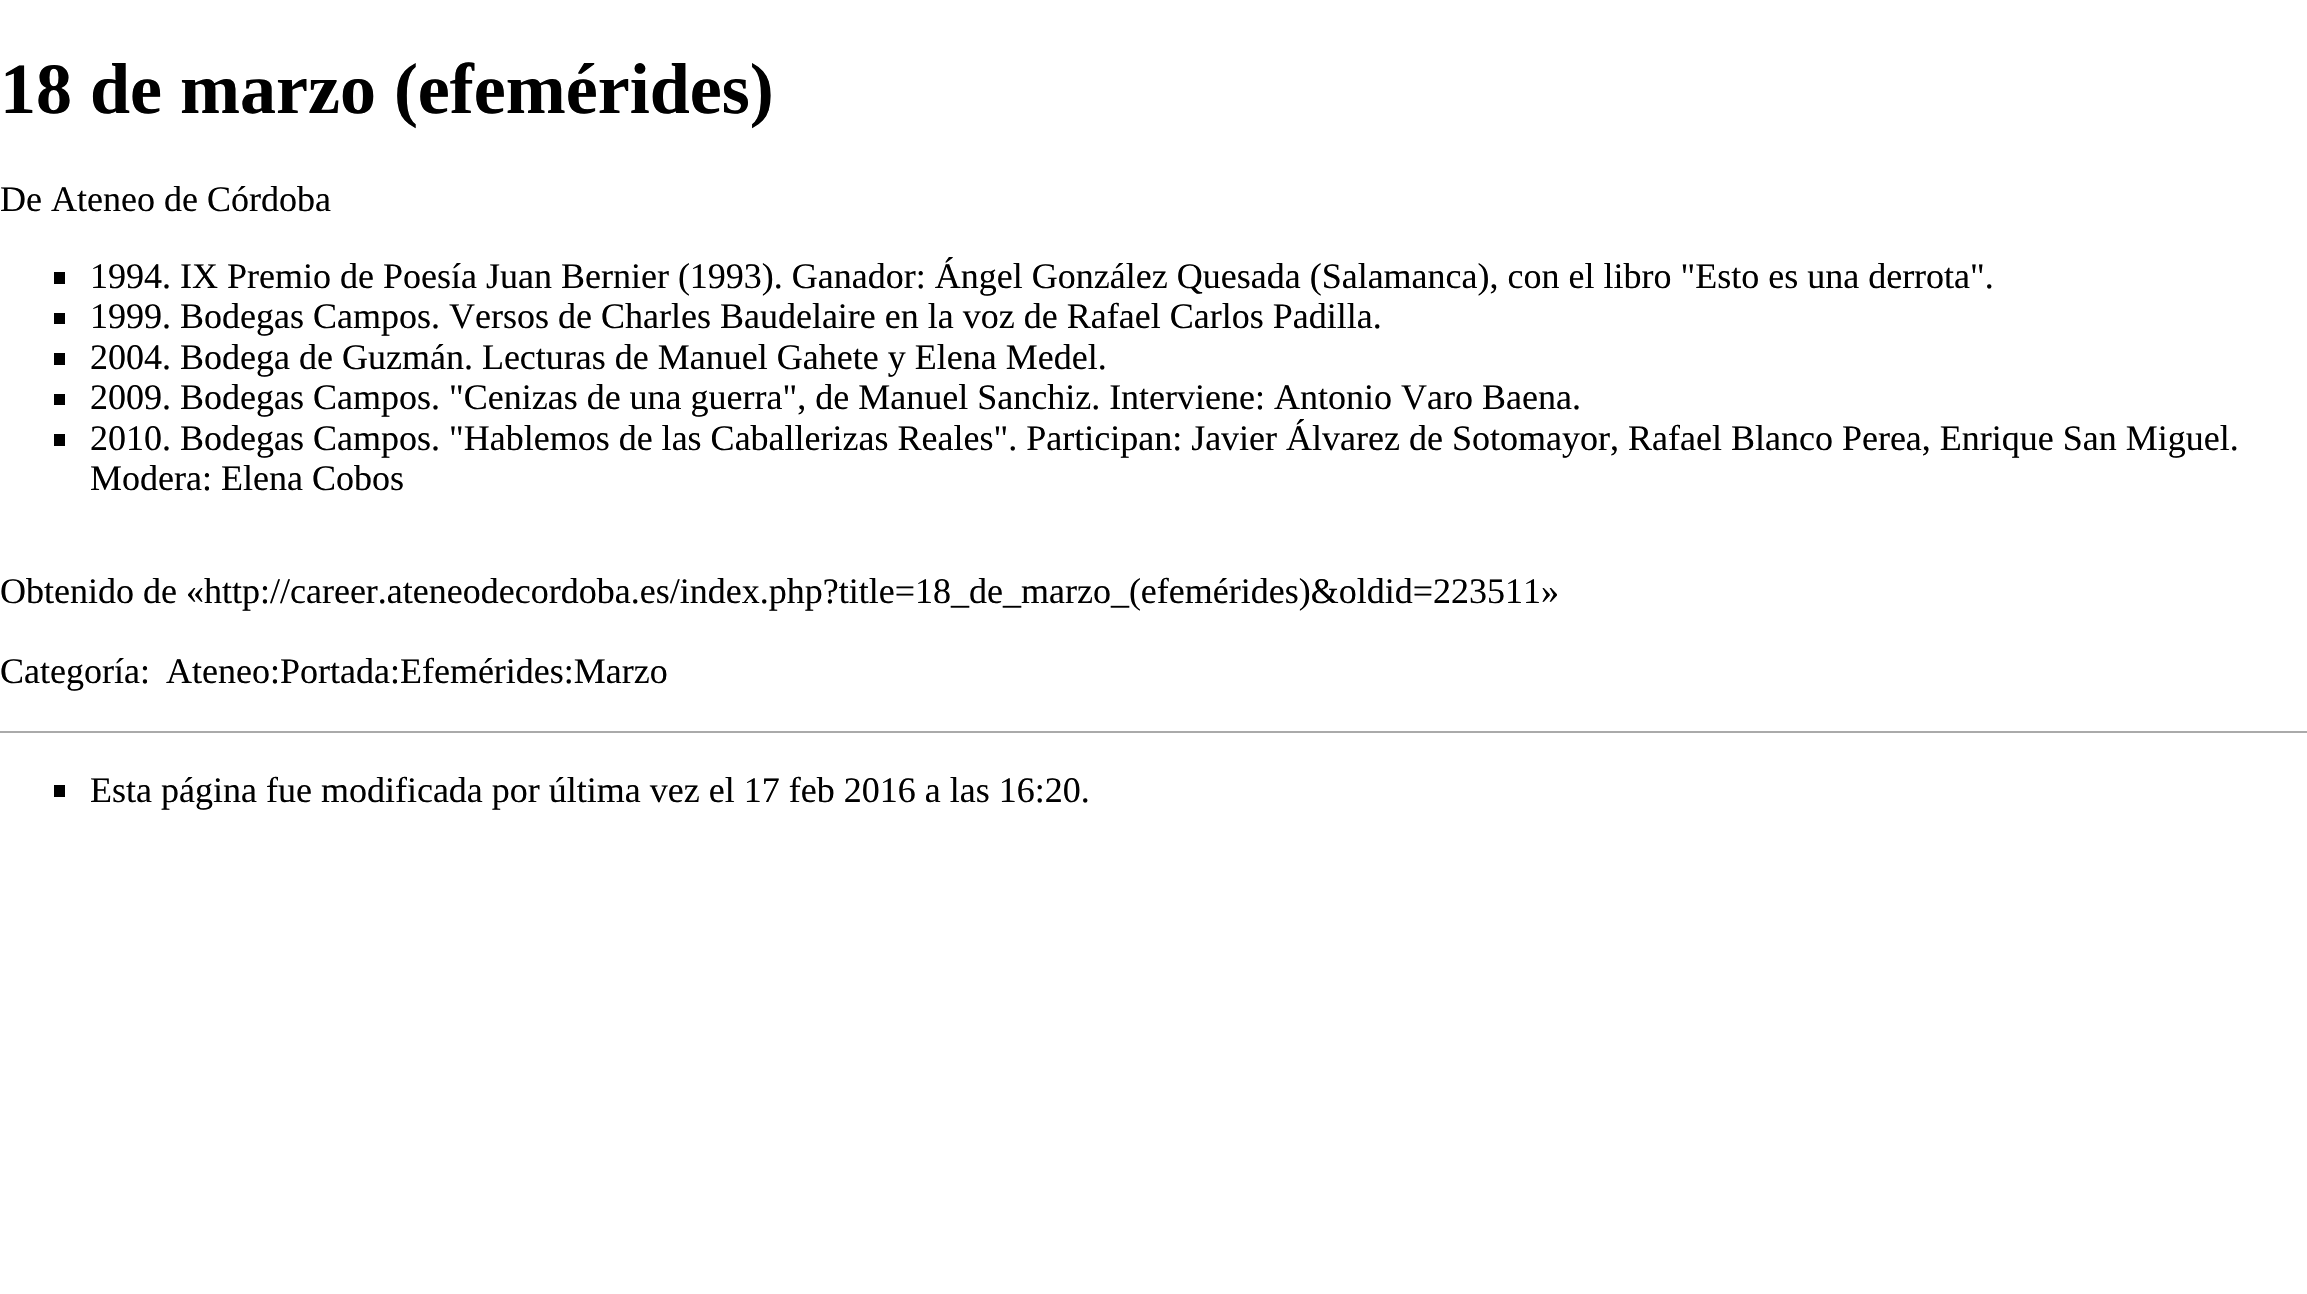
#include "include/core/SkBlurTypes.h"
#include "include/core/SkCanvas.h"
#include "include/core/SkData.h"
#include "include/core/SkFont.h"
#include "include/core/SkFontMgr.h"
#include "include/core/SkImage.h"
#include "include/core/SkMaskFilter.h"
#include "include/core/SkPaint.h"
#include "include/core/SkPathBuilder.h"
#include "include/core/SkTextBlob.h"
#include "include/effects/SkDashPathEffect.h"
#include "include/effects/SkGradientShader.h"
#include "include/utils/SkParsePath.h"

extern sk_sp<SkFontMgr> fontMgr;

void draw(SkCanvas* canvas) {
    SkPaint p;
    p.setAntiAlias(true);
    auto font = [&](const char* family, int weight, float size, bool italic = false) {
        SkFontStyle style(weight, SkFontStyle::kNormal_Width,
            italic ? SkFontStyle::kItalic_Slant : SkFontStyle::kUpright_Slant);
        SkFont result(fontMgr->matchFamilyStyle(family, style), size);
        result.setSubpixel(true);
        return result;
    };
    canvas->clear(0xFFFFFFFF);
    auto font1 = font("Liberation Serif", 700, 72);
    p.setColor(0xFF000000);
    canvas->drawString("18 de marzo (efemérides)", 0, 113, font1, p);
    auto font2 = font("Liberation Serif", 400, 36);
    canvas->drawString("De Ateneo de Córdoba", 0, 211, font2, p);
    canvas->drawRect(SkRect::MakeLTRB(54, 272, 65, 284), p);
    canvas->drawString("1994. IX Premio de Poesía Juan Bernier (1993). Ganador: Ángel González Quesada (Salamanca), con el libro \"Esto es una derrota\".", 90, 288, font2, p);
    canvas->drawRect(SkRect::MakeLTRB(54, 313, 65, 324), p);
    canvas->drawString("1999. Bodegas Campos. Versos de Charles Baudelaire en la voz de Rafael Carlos Padilla.", 90, 328, font2, p);
    canvas->drawRect(SkRect::MakeLTRB(54, 353, 65, 365), p);
    canvas->drawString("2004. Bodega de Guzmán. Lecturas de Manuel Gahete y Elena Medel.", 90, 369, font2, p);
    canvas->drawRect(SkRect::MakeLTRB(54, 394, 65, 405), p);
    canvas->drawString("2009. Bodegas Campos. \"Cenizas de una guerra\", de Manuel Sanchiz. Interviene: Antonio Varo Baena.", 90, 409, font2, p);
    canvas->drawRect(SkRect::MakeLTRB(54, 434, 65, 446), p);
    {
        const struct { const char* s; float x, y; } items[] = {
            {"2010. Bodegas Campos. \"Hablemos de las Caballerizas Reales\". Participan: Javier Álvarez de Sotomayor, Rafael Blanco Perea, Enrique San Miguel.", 90, 450},
            {"Modera: Elena Cobos", 90, 490},
            {"Obtenido de «http://career.ateneodecordoba.es/index.php?title=18_de_marzo_(efemérides)&oldid=223511»", 0, 603},
            {"Categoría:", 0, 683},
            {"Ateneo:Portada:Efemérides:Marzo", 166, 683},
        };
        for (auto [s, x, y] : items) {
            canvas->drawString(s, x, y, font2, p);
        }
    }
    p.setColor(0xFFAAAAAA);
    canvas->drawRect(SkRect::MakeLTRB(0, 731, 2307, 733), p);
    p.setColor(0xFF000000);
    canvas->drawRect(SkRect::MakeLTRB(54, 785, 65, 797), p);
    canvas->drawString("Esta página fue modificada por última vez el 17 feb 2016 a las 16:20.", 90, 802, font2, p);
}
